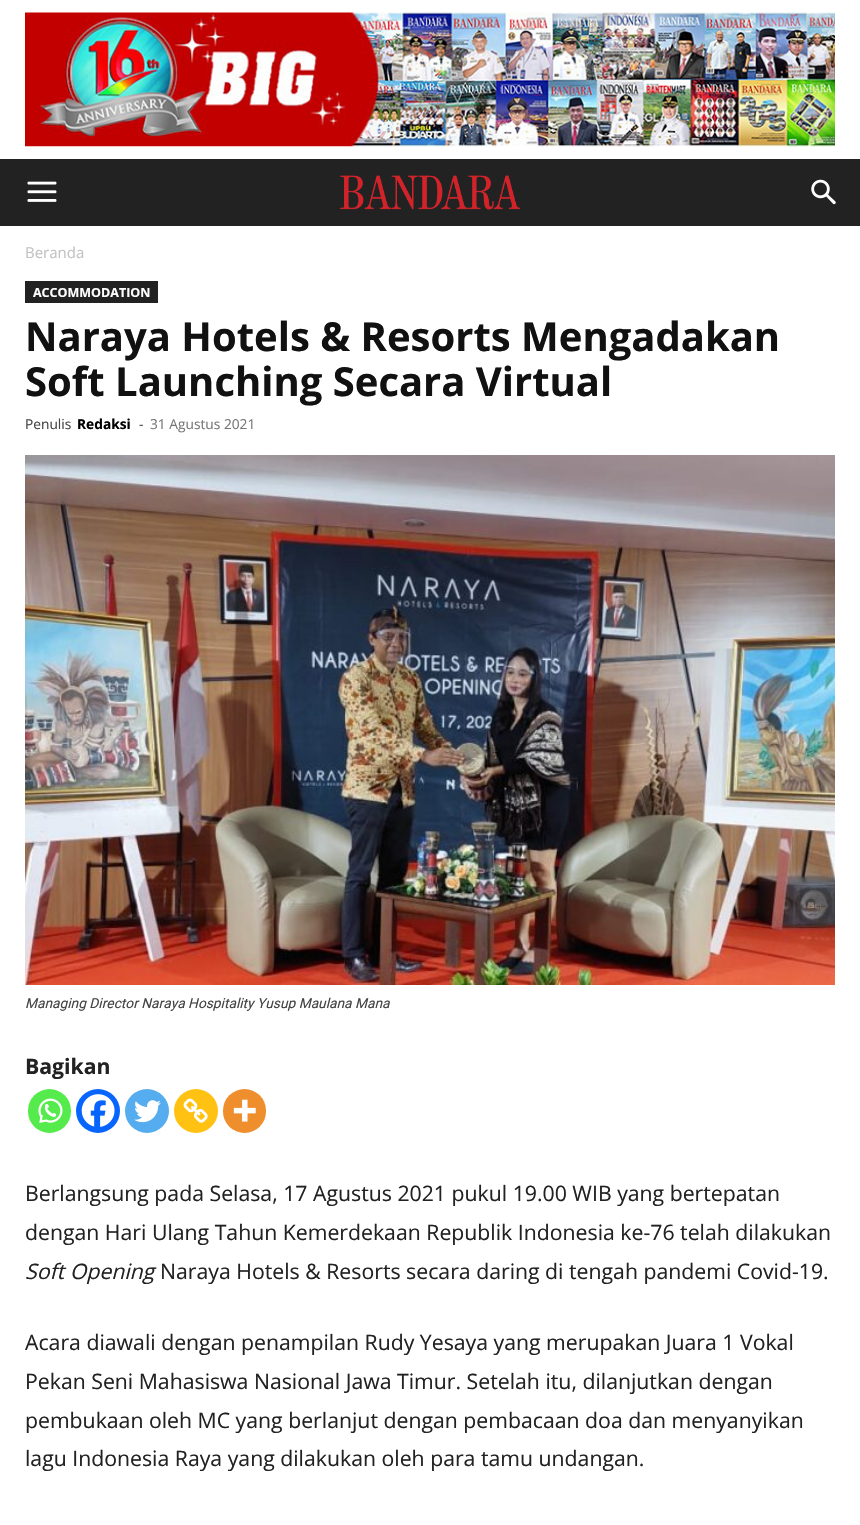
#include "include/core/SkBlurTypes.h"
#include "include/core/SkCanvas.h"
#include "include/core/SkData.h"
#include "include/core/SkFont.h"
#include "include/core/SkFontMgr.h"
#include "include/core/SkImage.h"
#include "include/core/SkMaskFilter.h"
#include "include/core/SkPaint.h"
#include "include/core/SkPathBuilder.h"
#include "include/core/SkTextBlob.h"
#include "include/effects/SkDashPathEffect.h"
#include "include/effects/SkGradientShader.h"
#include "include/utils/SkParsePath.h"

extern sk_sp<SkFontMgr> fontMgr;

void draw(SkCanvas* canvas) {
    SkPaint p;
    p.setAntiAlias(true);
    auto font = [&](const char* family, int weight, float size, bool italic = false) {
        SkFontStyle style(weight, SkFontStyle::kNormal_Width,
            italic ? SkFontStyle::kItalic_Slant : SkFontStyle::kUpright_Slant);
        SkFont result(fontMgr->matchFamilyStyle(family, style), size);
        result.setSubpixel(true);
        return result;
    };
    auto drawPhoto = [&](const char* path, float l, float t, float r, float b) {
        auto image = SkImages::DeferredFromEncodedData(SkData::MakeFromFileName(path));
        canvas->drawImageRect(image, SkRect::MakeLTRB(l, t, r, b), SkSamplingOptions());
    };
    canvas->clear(0xFFFFFFFF);
    drawPhoto("media/1.png", 25, 12, 835, 147);
    p.setColor(0xFF222222);
    canvas->drawRect(SkRect::MakeLTRB(0, 159, 860, 226), p);
    drawPhoto("media/2.png", 27, 181, 57, 202);
    drawPhoto("media/3.png", 340, 175, 520, 210);
    drawPhoto("media/4.png", 811, 179, 836, 205);
    auto font1 = font("Open Sans", 400, 15);
    p.setColor(0xFFC3C3C3);
    canvas->drawString("Beranda", 25, 258, font1, p);
    p.setColor(0xFF222222);
    canvas->drawRect(SkRect::MakeLTRB(25, 281, 158, 303), p);
    auto font2 = font("Open Sans", 700, 12.5f);
    p.setColor(0xFFFFFFFF);
    canvas->drawString("ACCOMMODATION", 33, 297, font2, p);
    auto font3 = font("Open Sans", 700, 40);
    p.setColor(0xFF111111);
    canvas->drawString("Naraya Hotels & Resorts Mengadakan", 25, 351, font3, p);
    canvas->drawString("Soft Launching Secara Virtual", 25, 396, font3, p);
    auto font4 = font("Open Sans", 400, 13.75f);
    p.setColor(0xFF444444);
    canvas->drawString("Penulis", 25, 429, font4, p);
    auto font5 = font("Open Sans", 700, 13.75f);
    p.setColor(0xFF000000);
    canvas->drawString("Redaksi", 77, 429, font5, p);
    p.setColor(0xFF444444);
    canvas->drawString("-", 139, 429, font4, p);
    p.setColor(0xFF767676);
    canvas->drawString("31 Agustus 2021", 150, 429, font4, p);
    drawPhoto("media/5.png", 25, 455, 835, 985);
    auto font6 = font("Roboto", 400, 13.75f, true);
    p.setColor(0xFF444444);
    canvas->drawString("Managing Director Naraya Hospitality Yusup Maulana Mana", 25, 1008, font6, p);
    auto font7 = font("Open Sans", 700, 21.25f);
    p.setColor(0xFF222222);
    canvas->drawString("Bagikan", 25, 1074, font7, p);
    p.setColor(0xFF55EB4C);
    canvas->drawRoundRect(SkRect::MakeLTRB(28, 1089, 71, 1133), 21.5f, 21.5f, p);
    drawPhoto("media/6.png", 38, 1098, 63, 1123);
    p.setColor(0xFF0765FE);
    canvas->drawCircle(98, 1111, 22, p);
    drawPhoto("media/7.png", 81, 1094, 115, 1127);
    p.setColor(0xFF55ACEE);
    canvas->drawCircle(147, 1111, 22, p);
    drawPhoto("media/8.png", 134, 1100, 161, 1123);
    p.setColor(0xFFFFC112);
    canvas->drawCircle(196, 1111, 22, p);
    drawPhoto("media/9.png", 183, 1098, 208, 1123);
    p.setColor(0xFFEE8E2D);
    canvas->drawRoundRect(SkRect::MakeLTRB(223, 1089, 266, 1133), 21.5f, 21.5f, p);
    drawPhoto("media/10.png", 233, 1099, 256, 1122);
    auto font8 = font("Open Sans", 400, 21.25f);
    p.setColor(0xFF222222);
    canvas->drawString("Berlangsung pada Selasa, 17 Agustus 2021 pukul 19.00 WIB yang bertepatan", 25, 1201, font8, p);
    canvas->drawString("dengan Hari Ulang Tahun Kemerdekaan Republik Indonesia ke-76 telah dilakukan", 25, 1240, font8, p);
    auto font9 = font("Open Sans", 400, 21.25f, true);
    canvas->drawString("Soft Opening", 25, 1279, font9, p);
    {
        const struct { const char* s; float x, y; } items[] = {
            {"Naraya Hotels & Resorts secara daring di tengah pandemi Covid-19.", 160, 1279},
            {"Acara diawali dengan penampilan Rudy Yesaya yang merupakan Juara 1 Vokal", 25, 1350},
            {"Pekan Seni Mahasiswa Nasional Jawa Timur. Setelah itu, dilanjutkan dengan", 25, 1389},
            {"pembukaan oleh MC yang berlanjut dengan pembacaan doa dan menyanyikan", 25, 1428},
            {"lagu Indonesia Raya yang dilakukan oleh para tamu undangan.", 25, 1466},
        };
        for (auto [s, x, y] : items) {
            canvas->drawString(s, x, y, font8, p);
        }
    }
}
